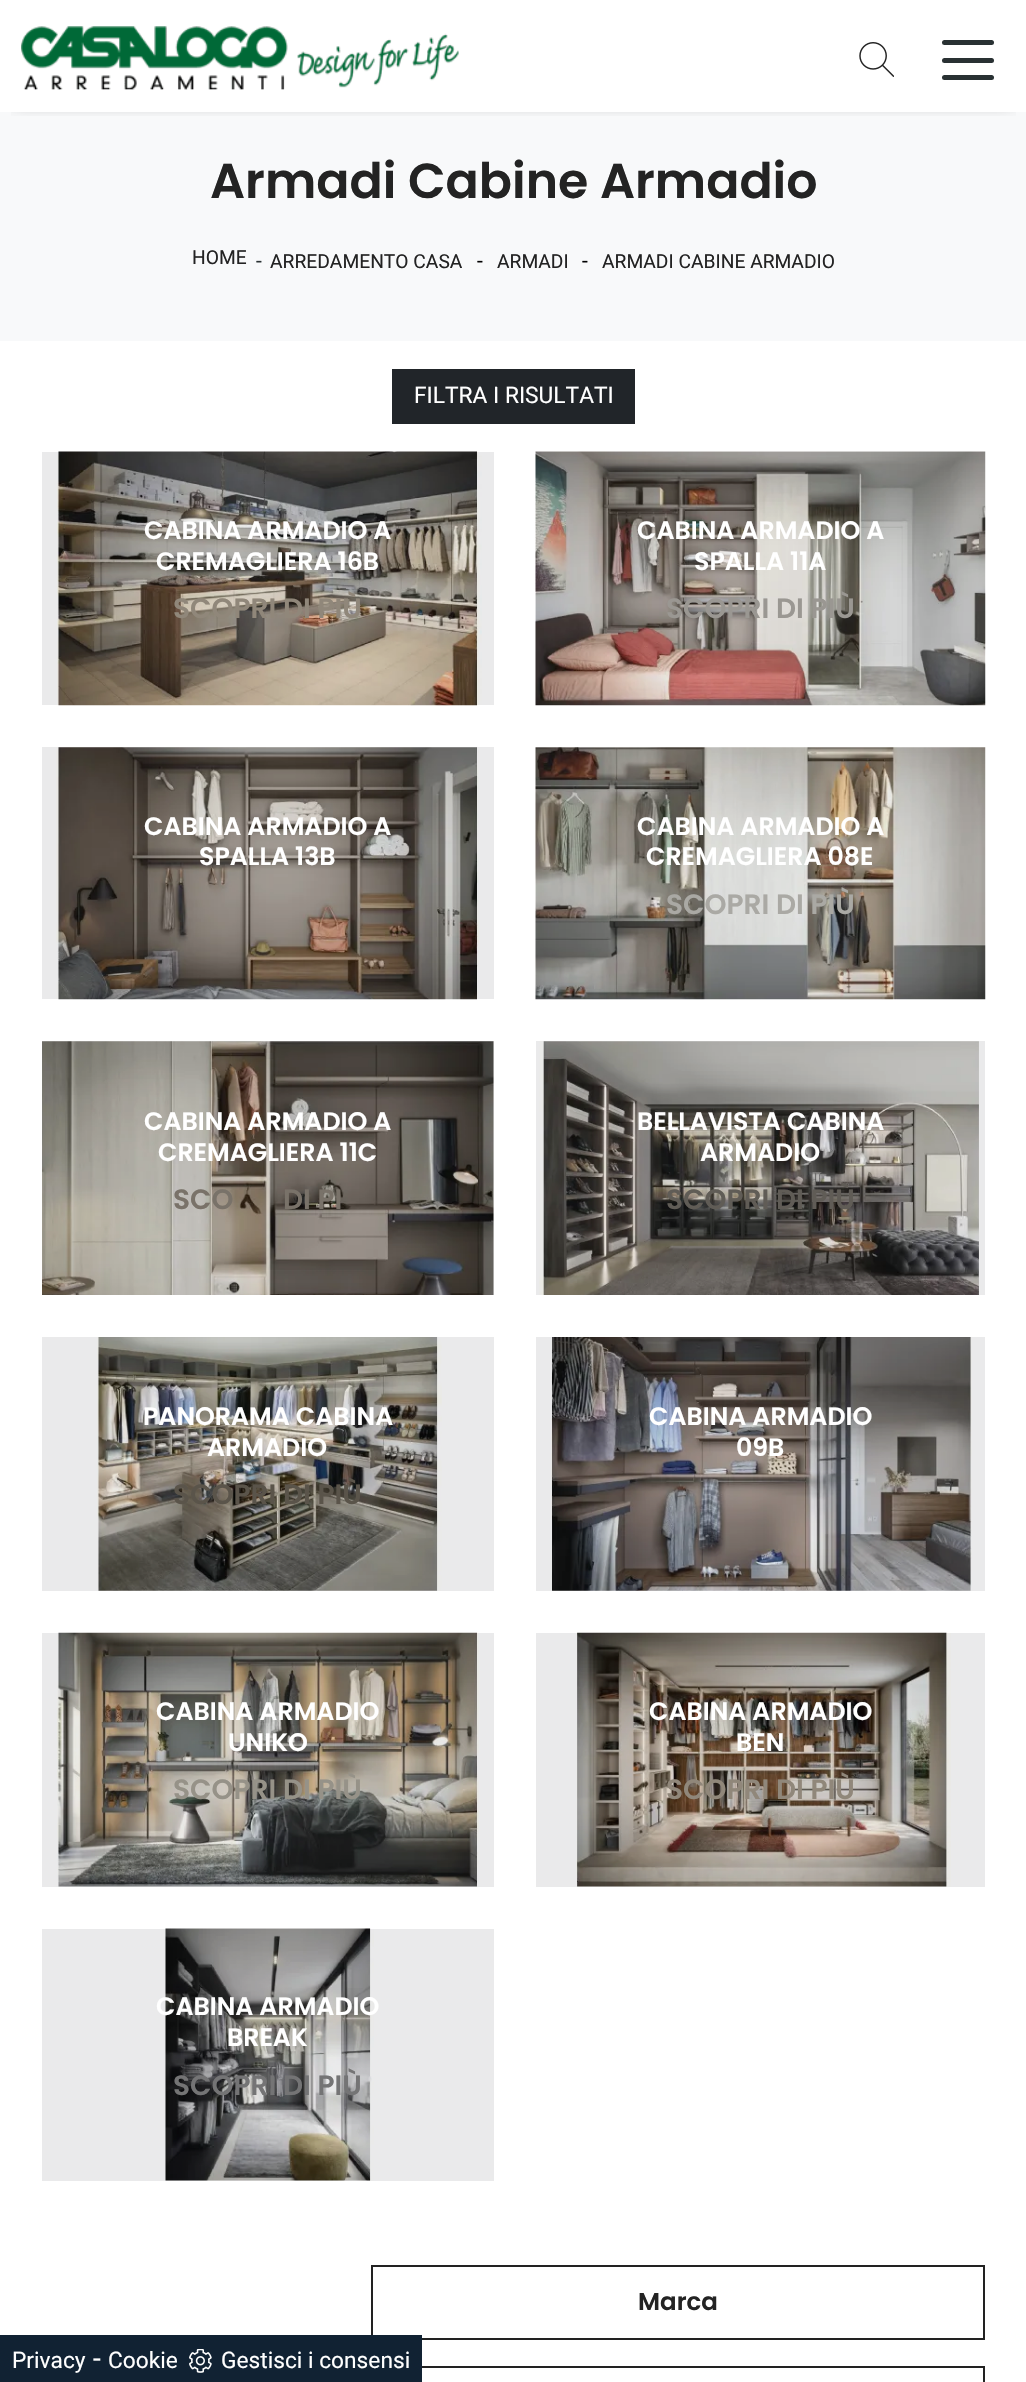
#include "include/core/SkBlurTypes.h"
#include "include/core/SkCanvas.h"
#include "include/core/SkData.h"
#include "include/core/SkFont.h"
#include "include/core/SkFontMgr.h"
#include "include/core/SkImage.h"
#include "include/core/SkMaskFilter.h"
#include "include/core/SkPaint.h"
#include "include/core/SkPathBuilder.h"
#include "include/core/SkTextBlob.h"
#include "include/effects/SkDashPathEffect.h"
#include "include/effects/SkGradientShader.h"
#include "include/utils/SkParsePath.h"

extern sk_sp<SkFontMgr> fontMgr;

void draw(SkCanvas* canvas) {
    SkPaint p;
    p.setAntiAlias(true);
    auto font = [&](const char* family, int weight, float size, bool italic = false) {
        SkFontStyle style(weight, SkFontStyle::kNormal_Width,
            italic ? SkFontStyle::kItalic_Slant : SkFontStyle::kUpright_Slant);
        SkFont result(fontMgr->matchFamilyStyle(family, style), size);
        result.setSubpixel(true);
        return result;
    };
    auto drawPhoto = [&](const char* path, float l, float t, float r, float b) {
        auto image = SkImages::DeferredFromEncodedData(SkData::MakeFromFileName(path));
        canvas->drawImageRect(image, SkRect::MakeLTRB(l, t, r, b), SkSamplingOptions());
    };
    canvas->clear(0xFFFFFFFF);
    {
        const struct { float l, t, r, b; SkColor color; } items[] = {
            {42, 1929, 494, 2181, 0xFFEAEAEB},
            {536, 1633, 985, 1887, 0xFFEAEAEB},
            {42, 1633, 494, 1887, 0xFFEAEAEB},
            {536, 1337, 985, 1591, 0xFFEAEAEB},
            {42, 1337, 494, 1591, 0xFFEAEAEB},
            {536, 1041, 985, 1295, 0xFFEAEAEB},
            {42, 1041, 494, 1295, 0xFFEAEAEB},
            {42, 747, 494, 999, 0xFFEAEAEB},
            {42, 452, 494, 705, 0xFFEAEAEB},
            {0, 112, 1026, 341, 0xFFF8F9FA},
        };
        for (auto [l, t, r, b, color] : items) {
            p.setColor(color);
            canvas->drawRect(SkRect::MakeLTRB(l, t, r, b), p);
        }
    }
    canvas->save();
    canvas->clipRect(SkRect::MakeLTRB(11, 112, 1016, 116));
    p.setColor(0xFF333333);
    p.setMaskFilter(SkMaskFilter::MakeBlur(kNormal_SkBlurStyle, 9));
    canvas->drawRect(SkRect::MakeLTRB(14, 14, 1013, 98), p);
    p.setMaskFilter(nullptr);
    canvas->restore();
    drawPhoto("media/1.png", 21, 26, 459, 90);
    drawPhoto("media/2.png", 859, 42, 894, 77);
    p.setColor(0xFF293133);
    canvas->drawRoundRect(SkRect::MakeLTRB(942, 40, 994, 45), 2.5f, 2.5f, p);
    canvas->drawRoundRect(SkRect::MakeLTRB(942, 58, 994, 63), 2.5f, 2.5f, p);
    canvas->drawRoundRect(SkRect::MakeLTRB(942, 75, 994, 80), 2.5f, 2.5f, p);
    auto font1 = font("Poppins", 600, 49);
    p.setColor(0xFF232323);
    canvas->drawString("Armadi Cabine Armadio", 210, 198, font1, p);
    auto font2 = font("Roboto", 400, 19.25f);
    canvas->drawString("HOME", 192, 264, font2, p);
    auto font3 = font("Roboto", 400, 21);
    p.setColor(0xFF293133);
    canvas->drawString("-", 256, 268, font3, p);
    p.setColor(0xFF232323);
    canvas->drawString("ARREDAMENTO CASA", 270, 268, font2, p);
    p.setColor(0xFF000000);
    canvas->drawString("-", 477, 268, font3, p);
    p.setColor(0xFF232323);
    canvas->drawString("ARMADI", 497, 268, font2, p);
    p.setColor(0xFF000000);
    canvas->drawString("-", 582, 268, font3, p);
    p.setColor(0xFF232323);
    canvas->drawString("ARMADI CABINE ARMADIO", 602, 268, font2, p);
    p.setColor(0xFF212529);
    canvas->drawRect(SkRect::MakeLTRB(392, 369, 635, 424), p);
    auto font4 = font("Roboto", 400, 22.75f);
    p.setColor(0xFFFFFFFF);
    canvas->drawString("FILTRA I RISULTATI", 414, 403, font4, p);
    drawPhoto("media/3.png", 57, 451, 482, 706);
    auto font5 = font("Poppins", 600, 25.25f);
    canvas->drawString("CABINA ARMADIO A", 144, 539, font5, p);
    canvas->drawString("CREMAGLIERA 16B", 156, 570, font5, p);
    auto font6 = font("Poppins", 600, 28);
    p.setColor(0xFF90877A);
    canvas->drawString("SCOPRI DI PIÙ", 173, 618, font6, p);
    drawPhoto("media/4.png", 535, 451, 986, 706);
    p.setColor(0xFFFFFFFF);
    canvas->drawString("CABINA ARMADIO A", 637, 539, font5, p);
    canvas->drawString("SPALLA 11A", 694, 570, font5, p);
    p.setColor(0xFF9A9792);
    canvas->drawString("SCOPRI DI PIÙ", 666, 618, font6, p);
    drawPhoto("media/5.png", 56, 747, 479, 1000);
    p.setColor(0xFFFFFFFF);
    canvas->drawString("CABINA ARMADIO A", 144, 835, font5, p);
    canvas->drawString("SPALLA 13B", 199, 865, font5, p);
    drawPhoto("media/6.png", 535, 747, 986, 1000);
    canvas->drawString("CABINA ARMADIO A", 637, 835, font5, p);
    canvas->drawString("CREMAGLIERA 08E", 646, 865, font5, p);
    p.setColor(0xFFAAA9A4);
    canvas->drawString("SCOPRI DI PIÙ", 666, 914, font6, p);
    drawPhoto("media/7.png", 42, 1041, 494, 1295);
    p.setColor(0xFFFFFFFF);
    canvas->drawString("CABINA ARMADIO A", 144, 1130, font5, p);
    canvas->drawString("CREMAGLIERA 11C", 158, 1161, font5, p);
    p.setColor(0xFF797269);
    canvas->drawString("SCO", 173, 1209, font6, p);
    canvas->drawString("DI PI", 283, 1209, font6, p);
    drawPhoto("media/8.png", 539, 1041, 979, 1295);
    p.setColor(0xFFFFFFFF);
    canvas->drawString("BELLAVISTA CABINA", 637, 1130, font5, p);
    canvas->drawString("ARMADIO", 700, 1161, font5, p);
    p.setColor(0xFF605C56);
    canvas->drawString("SCOPRI DI PIÙ", 666, 1209, font6, p);
    drawPhoto("media/9.png", 97, 1337, 442, 1591);
    p.setColor(0xFFFFFFFF);
    canvas->drawString("PANORAMA CABINA", 143, 1425, font5, p);
    canvas->drawString("ARMADIO", 207, 1456, font5, p);
    p.setColor(0xFF5A544A);
    canvas->drawString("SCOPRI DI PIÙ", 173, 1504, font6, p);
    drawPhoto("media/10.png", 551, 1337, 972, 1591);
    p.setColor(0xFFFFFFFF);
    canvas->drawString("CABINA ARMADIO", 649, 1425, font5, p);
    canvas->drawString("09B", 736, 1456, font5, p);
    drawPhoto("media/11.png", 57, 1632, 479, 1887);
    canvas->drawString("CABINA ARMADIO", 156, 1720, font5, p);
    canvas->drawString("UNIKO", 228, 1751, font5, p);
    p.setColor(0xFF969288);
    canvas->drawString("SCOPRI DI PIÙ", 173, 1799, font6, p);
    drawPhoto("media/12.png", 576, 1632, 951, 1887);
    p.setColor(0xFFFFFFFF);
    canvas->drawString("CABINA ARMADIO", 649, 1720, font5, p);
    canvas->drawString("BEN", 736, 1751, font5, p);
    p.setColor(0xFF90877A);
    canvas->drawString("SCOPRI DI PIÙ", 666, 1799, font6, p);
    drawPhoto("media/13.png", 165, 1928, 374, 2181);
    p.setColor(0xFFFFFFFF);
    canvas->drawString("CABINA ARMADIO", 156, 2015, font5, p);
    canvas->drawString("BREAK", 227, 2046, font5, p);
    p.setColor(0xFF747475);
    canvas->drawString("SCOPRI DI PIÙ", 173, 2095, font6, p);
    p.setStyle(SkPaint::kStroke_Style);
    p.setStrokeWidth(2);
    p.setColor(0xFF222222);
    canvas->drawRect(SkRect::MakeLTRB(372, 2266, 984, 2339), p);
    auto font7 = font("Poppins", 600, 24.5f);
    p.setStyle(SkPaint::kFill_Style);
    p.setColor(0xFF232323);
    canvas->drawString("Marca", 638, 2310, font7, p);
    p.setStyle(SkPaint::kStroke_Style);
    p.setColor(0xFF222222);
    canvas->drawRect(SkRect::MakeLTRB(372, 2367, 984, 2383), p);
    p.setStyle(SkPaint::kFill_Style);
    p.setColor(0xFF112233);
    canvas->drawRect(SkRect::MakeLTRB(0, 2335, 422, 2382), p);
    p.setColor(0xFFFFFFFF);
    canvas->drawString("Privacy", 12, 2368, font4, p);
    auto font8 = font("Roboto", 400, 28);
    canvas->drawString("-", 93, 2368, font8, p);
    canvas->drawString("Cookie", 108, 2368, font4, p);
    drawPhoto("media/14.png", 189, 2349, 212, 2373);
    canvas->drawString("Gestisci i consensi", 221, 2368, font4, p);
}
